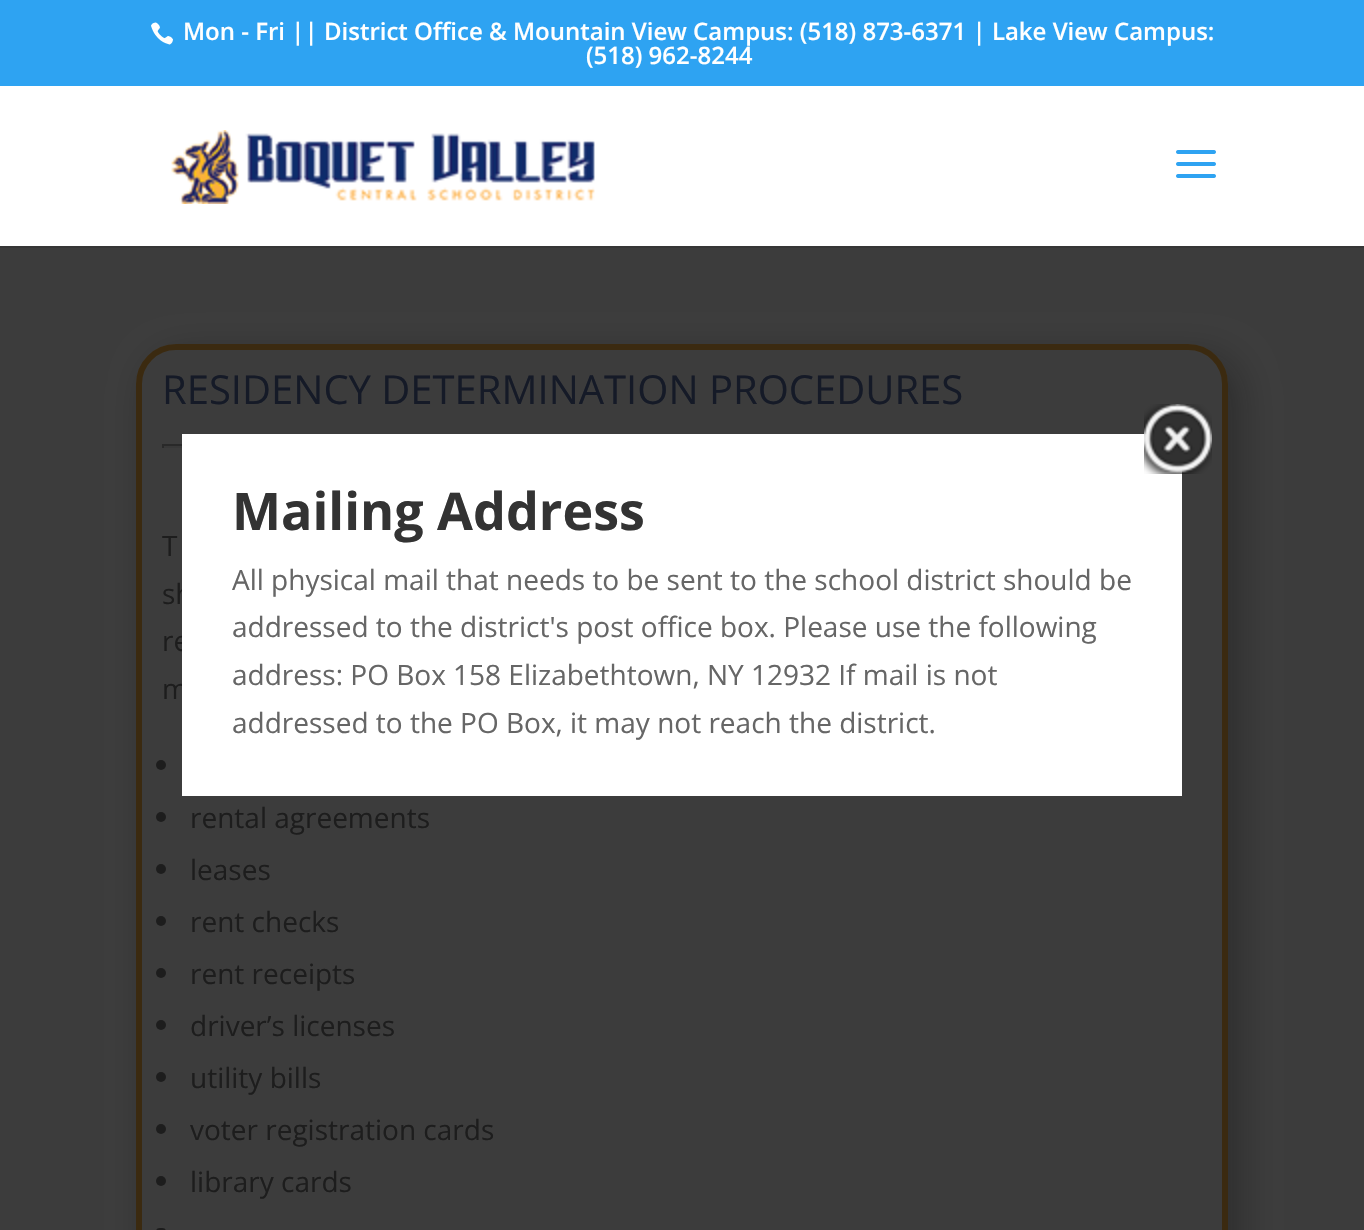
#include "include/core/SkBlurTypes.h"
#include "include/core/SkCanvas.h"
#include "include/core/SkData.h"
#include "include/core/SkFont.h"
#include "include/core/SkFontMgr.h"
#include "include/core/SkImage.h"
#include "include/core/SkMaskFilter.h"
#include "include/core/SkPaint.h"
#include "include/core/SkPathBuilder.h"
#include "include/core/SkTextBlob.h"
#include "include/effects/SkDashPathEffect.h"
#include "include/effects/SkGradientShader.h"
#include "include/utils/SkParsePath.h"

extern sk_sp<SkFontMgr> fontMgr;

void draw(SkCanvas* canvas) {
    SkPaint p;
    p.setAntiAlias(true);
    auto font = [&](const char* family, int weight, float size, bool italic = false) {
        SkFontStyle style(weight, SkFontStyle::kNormal_Width,
            italic ? SkFontStyle::kItalic_Slant : SkFontStyle::kUpright_Slant);
        SkFont result(fontMgr->matchFamilyStyle(family, style), size);
        result.setSubpixel(true);
        return result;
    };
    auto drawPhoto = [&](const char* path, float l, float t, float r, float b) {
        auto image = SkImages::DeferredFromEncodedData(SkData::MakeFromFileName(path));
        canvas->drawImageRect(image, SkRect::MakeLTRB(l, t, r, b), SkSamplingOptions());
    };
    canvas->clear(0xFF3C3C3C);
    p.setColor(0xFF2EA3F2);
    canvas->drawRect(SkRect::MakeLTRB(0, 0, 1364, 86), p);
    drawPhoto("media/1.png", 151, 22, 173, 45);
    auto font1 = font("Open Sans", 600, 24);
    p.setColor(0xFFFFFFFF);
    canvas->drawString("Mon - Fri || District Office & Mountain View Campus: (518) 873-6371 | Lake View Campus:", 183, 40, font1, p);
    canvas->drawString("(518) 962-8244", 586, 64, font1, p);
    p.setColor(0xFF363636);
    canvas->drawRect(SkRect::MakeLTRB(0, 246, 1364, 248), p);
    p.setColor(0xFFFFFFFF);
    canvas->drawRect(SkRect::MakeLTRB(0, 86, 1364, 246), p);
    drawPhoto("media/2.png", 171, 130, 595, 204);
    drawPhoto("media/3.png", 1176, 150, 1216, 178);
    canvas->save();
    canvas->clipPath(SkPathBuilder(SkPathFillType::kEvenOdd).moveTo(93, 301).lineTo(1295, 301).lineTo(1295, 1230).lineTo(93, 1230).close().moveTo(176, 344).lineTo(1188, 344).cubicTo(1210, 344, 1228, 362, 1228, 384).lineTo(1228, 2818).cubicTo(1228, 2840, 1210, 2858, 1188, 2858).lineTo(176, 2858).cubicTo(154, 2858, 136, 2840, 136, 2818).lineTo(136, 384).cubicTo(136, 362, 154, 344, 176, 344).close().detach(), true);
    p.setColor(0x4D090909);
    p.setMaskFilter(SkMaskFilter::MakeBlur(kNormal_SkBlurStyle, 18));
    canvas->drawRoundRect(SkRect::MakeLTRB(148, 356, 1240, 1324), 40, 40, p);
    p.setMaskFilter(nullptr);
    canvas->restore();
    p.setStyle(SkPaint::kStroke_Style);
    p.setStrokeWidth(6);
    p.setColor(0xFF3B2A10);
    canvas->drawRoundRect(SkRect::MakeLTRB(139, 347, 1225, 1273), 37, 37, p);
    auto font2 = font("Open Sans", 400, 40);
    p.setStyle(SkPaint::kFill_Style);
    p.setColor(0xFF151A27);
    canvas->drawString("RESIDENCY DETERMINATION PROCEDURES", 162, 404, font2, p);
    {
        const struct { float l, t, r, b; SkColor color; } items[] = {
            {162, 444, 182, 446, 0xFF292929},
            {162, 446, 182, 448, 0xFF383838},
            {162, 444, 164, 448, 0xFF292929},
        };
        for (auto [l, t, r, b, color] : items) {
            p.setColor(color);
            canvas->drawRect(SkRect::MakeLTRB(l, t, r, b), p);
        }
    }
    auto font3 = font("Open Sans", 400, 28);
    p.setColor(0xFF1D1D1D);
    {
        const struct { const char* s; float x, y; } items[] = {
            {"T", 162, 556},
            {"sh", 162, 604},
            {"re", 162, 651},
            {"m", 162, 699},
        };
        for (auto [s, x, y] : items) {
            canvas->drawString(s, x, y, font3, p);
        }
    }
    canvas->drawCircle(161, 765, 5, p);
    canvas->drawCircle(161, 817, 5, p);
    canvas->drawString("rental agreements", 190, 828, font3, p);
    canvas->drawCircle(161, 869, 5, p);
    canvas->drawString("leases", 190, 880, font3, p);
    canvas->drawCircle(161, 921, 5, p);
    canvas->drawString("rent checks", 190, 932, font3, p);
    canvas->drawCircle(161, 973, 5, p);
    canvas->drawString("rent receipts", 190, 984, font3, p);
    canvas->drawCircle(161, 1025, 5, p);
    canvas->drawString("driver’s licenses", 190, 1036, font3, p);
    canvas->drawCircle(161, 1077, 5, p);
    canvas->drawString("utility bills", 190, 1088, font3, p);
    canvas->drawCircle(161, 1129, 5, p);
    canvas->drawString("voter registration cards", 190, 1140, font3, p);
    canvas->drawCircle(161, 1181, 5, p);
    canvas->drawString("library cards", 190, 1192, font3, p);
    canvas->drawRoundRect(SkRect::MakeLTRB(156, 1228, 166, 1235), 5, 5, p);
    p.setColor(0xFFFFFFFF);
    canvas->drawRect(SkRect::MakeLTRB(182, 434, 1182, 796), p);
    drawPhoto("media/4.png", 1144, 404, 1212, 474);
    auto font4 = font("Open Sans", 700, 52);
    p.setColor(0xFF333333);
    canvas->drawString("Mailing Address", 232, 530, font4, p);
    p.setColor(0xFF666666);
    {
        const struct { const char* s; float x, y; } items[] = {
            {"All physical mail that needs to be sent to the school district should be", 232, 590},
            {"addressed to the district's post office box. Please use the following", 232, 637},
            {"address: PO Box 158 Elizabethtown, NY 12932 If mail is not", 232, 685},
            {"addressed to the PO Box, it may not reach the district.", 232, 733},
        };
        for (auto [s, x, y] : items) {
            canvas->drawString(s, x, y, font3, p);
        }
    }
}
